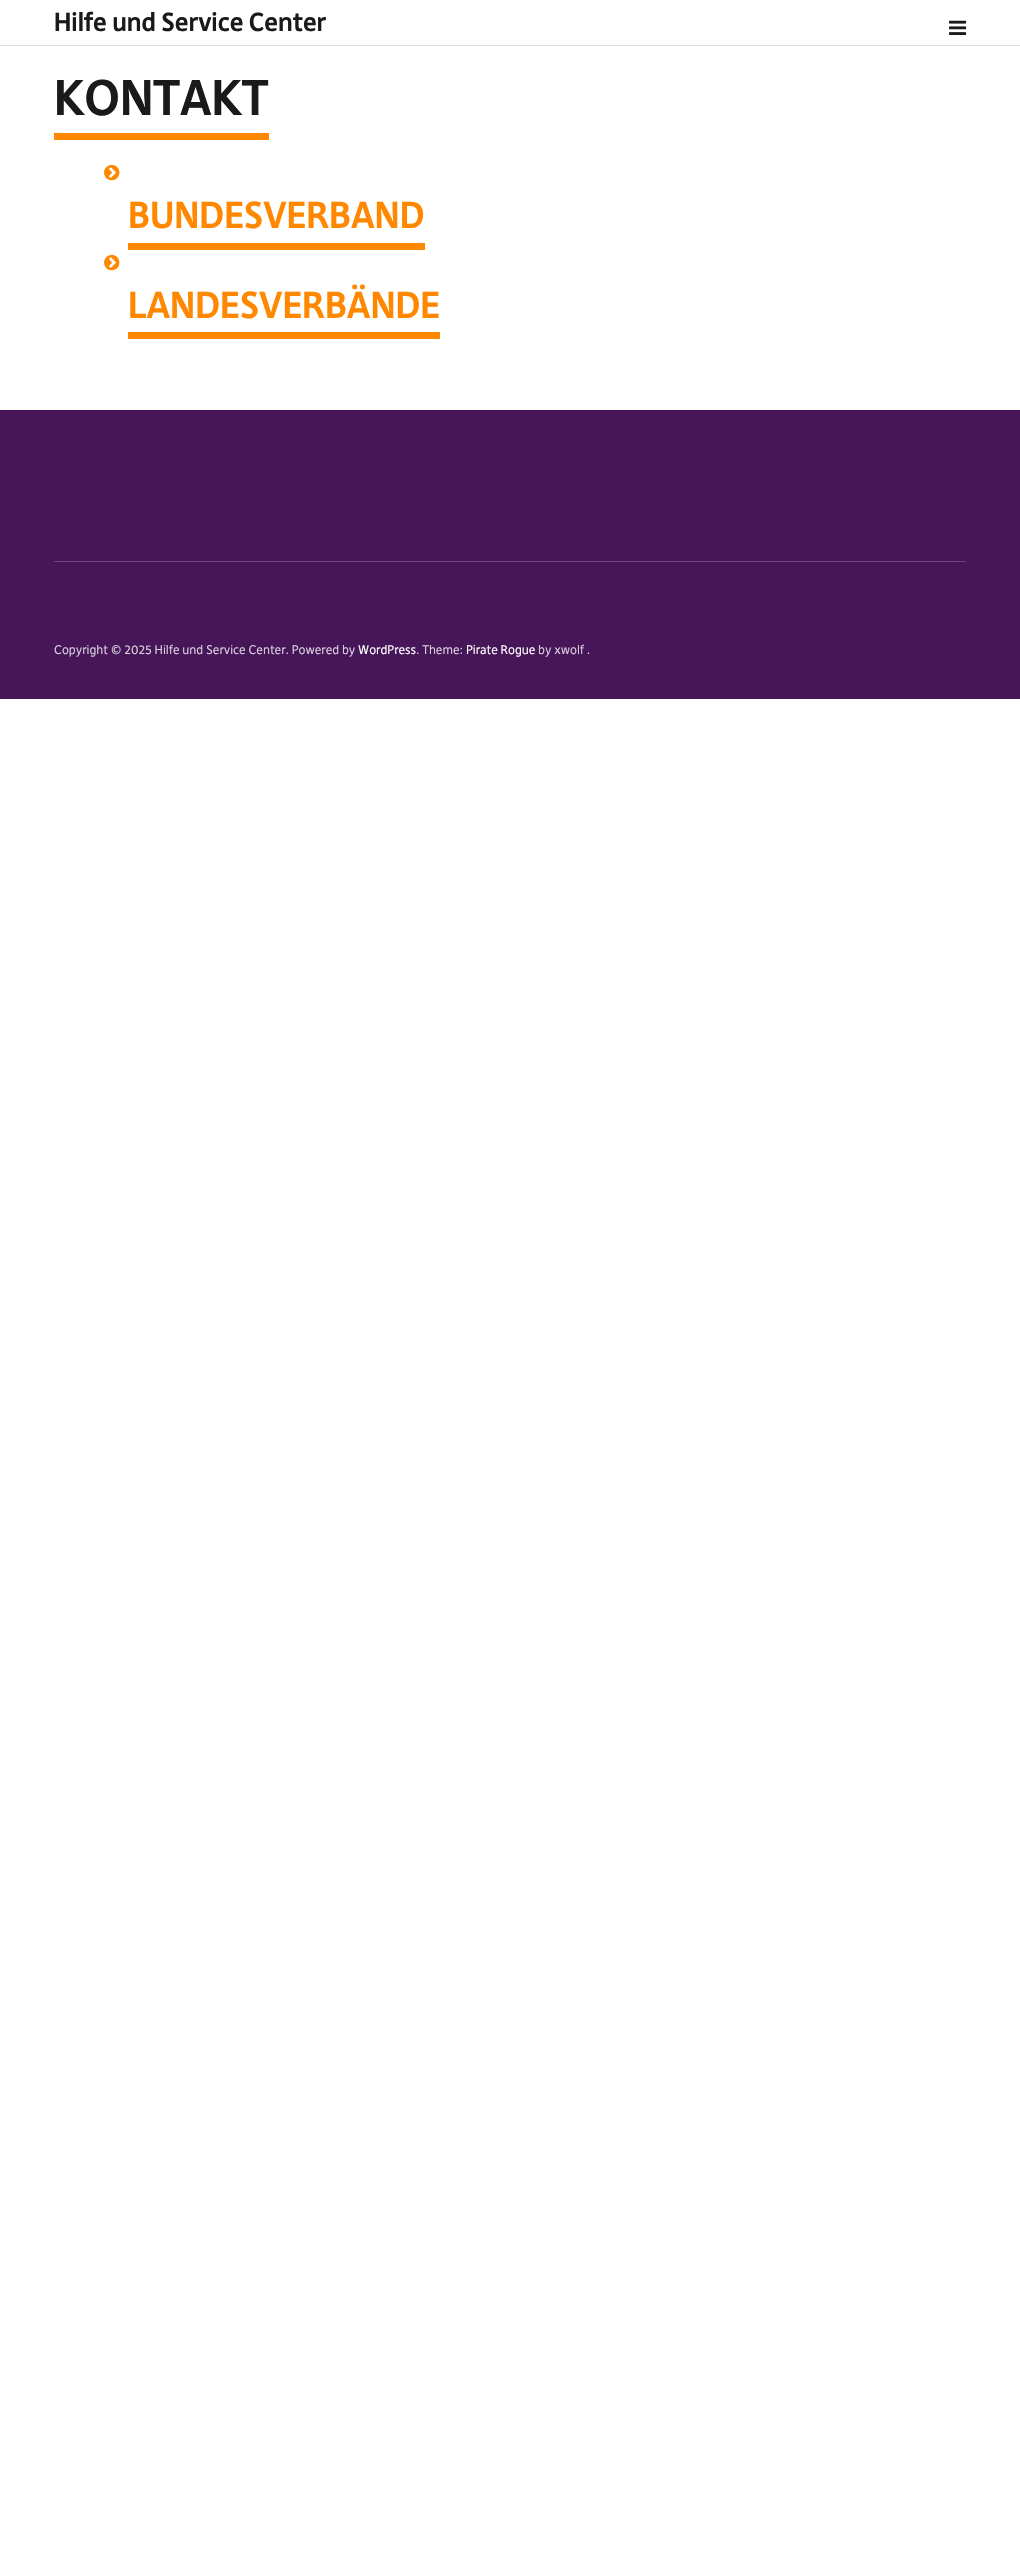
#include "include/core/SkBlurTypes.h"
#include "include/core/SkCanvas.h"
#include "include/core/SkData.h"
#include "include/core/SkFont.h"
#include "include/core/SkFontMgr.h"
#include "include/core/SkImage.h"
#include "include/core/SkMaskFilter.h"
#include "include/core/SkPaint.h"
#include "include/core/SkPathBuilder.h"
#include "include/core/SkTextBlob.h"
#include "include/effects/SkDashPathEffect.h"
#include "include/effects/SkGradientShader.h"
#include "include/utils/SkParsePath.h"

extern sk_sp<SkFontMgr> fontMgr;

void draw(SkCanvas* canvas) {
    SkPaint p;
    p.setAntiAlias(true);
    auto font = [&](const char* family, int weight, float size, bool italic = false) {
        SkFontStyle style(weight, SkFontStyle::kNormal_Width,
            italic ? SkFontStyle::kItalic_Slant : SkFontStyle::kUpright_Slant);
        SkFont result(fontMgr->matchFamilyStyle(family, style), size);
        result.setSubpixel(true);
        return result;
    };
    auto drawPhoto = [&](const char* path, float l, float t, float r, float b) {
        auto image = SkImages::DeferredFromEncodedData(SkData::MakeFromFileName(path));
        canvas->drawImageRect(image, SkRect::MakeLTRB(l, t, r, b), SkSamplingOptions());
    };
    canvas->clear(0xFFFFFFFF);
    p.setColor(0xFFDDDDDD);
    canvas->drawRect(SkRect::MakeLTRB(0, 45, 1020, 46), p);
    auto font1 = font("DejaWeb", 700, 25);
    p.setColor(0xFF1A1A1A);
    canvas->drawString("Hilfe und Service Center", 54, 31, font1, p);
    drawPhoto("media/1.png", 949, 20, 967, 35);
    p.setColor(0xFFFF8800);
    canvas->drawRect(SkRect::MakeLTRB(54, 133, 269, 140), p);
    auto font2 = font("DejaWeb", 700, 48);
    p.setColor(0xFF1A1A1A);
    canvas->drawString("KONTAKT", 54, 115, font2, p);
    drawPhoto("media/2.png", 104, 164, 120, 181);
    p.setColor(0xFFFF8800);
    canvas->drawRect(SkRect::MakeLTRB(128, 243, 425, 250), p);
    auto font3 = font("DejaWeb", 700, 36);
    canvas->drawString("BUNDESVERBAND", 128, 228, font3, p);
    drawPhoto("media/2.png", 104, 254, 120, 271);
    canvas->drawRect(SkRect::MakeLTRB(128, 332, 440, 339), p);
    canvas->drawString("LANDESVERBÄNDE", 128, 318, font3, p);
    p.setColor(0xFF471659);
    canvas->drawRect(SkRect::MakeLTRB(0, 410, 1020, 699), p);
    p.setColor(0xFF6C457A);
    canvas->drawRect(SkRect::MakeLTRB(54, 561, 966, 562), p);
    auto font4 = font("DejaWeb", 400, 12);
    p.setColor(0xFFDAD0DE);
    canvas->drawString("Copyright © 2025 Hilfe und Service Center. Powered by", 54, 654, font4, p);
    p.setColor(0xFFFFFFFF);
    canvas->drawString("WordPress", 358, 654, font4, p);
    p.setColor(0xFFDAD0DE);
    canvas->drawString(". Theme:", 416, 654, font4, p);
    p.setColor(0xFFFFFFFF);
    canvas->drawString("Pirate Rogue", 466, 654, font4, p);
    p.setColor(0xFFDAD0DE);
    canvas->drawString("by xwolf .", 538, 654, font4, p);
}
